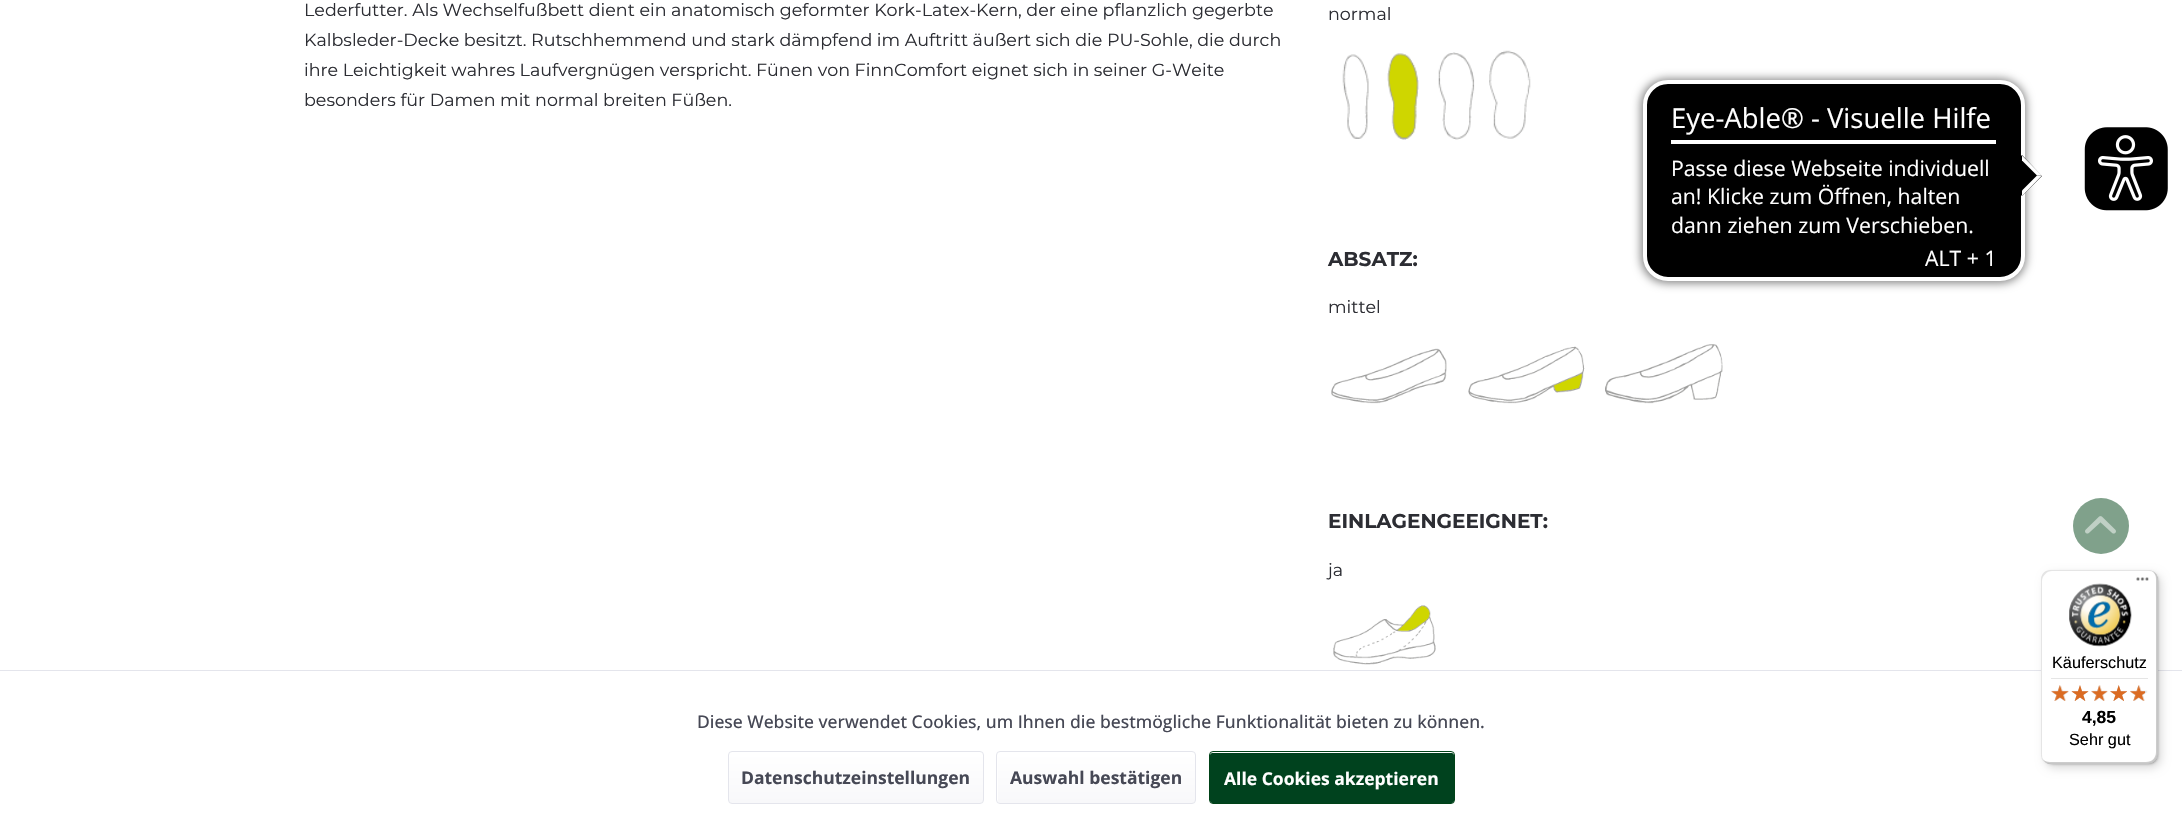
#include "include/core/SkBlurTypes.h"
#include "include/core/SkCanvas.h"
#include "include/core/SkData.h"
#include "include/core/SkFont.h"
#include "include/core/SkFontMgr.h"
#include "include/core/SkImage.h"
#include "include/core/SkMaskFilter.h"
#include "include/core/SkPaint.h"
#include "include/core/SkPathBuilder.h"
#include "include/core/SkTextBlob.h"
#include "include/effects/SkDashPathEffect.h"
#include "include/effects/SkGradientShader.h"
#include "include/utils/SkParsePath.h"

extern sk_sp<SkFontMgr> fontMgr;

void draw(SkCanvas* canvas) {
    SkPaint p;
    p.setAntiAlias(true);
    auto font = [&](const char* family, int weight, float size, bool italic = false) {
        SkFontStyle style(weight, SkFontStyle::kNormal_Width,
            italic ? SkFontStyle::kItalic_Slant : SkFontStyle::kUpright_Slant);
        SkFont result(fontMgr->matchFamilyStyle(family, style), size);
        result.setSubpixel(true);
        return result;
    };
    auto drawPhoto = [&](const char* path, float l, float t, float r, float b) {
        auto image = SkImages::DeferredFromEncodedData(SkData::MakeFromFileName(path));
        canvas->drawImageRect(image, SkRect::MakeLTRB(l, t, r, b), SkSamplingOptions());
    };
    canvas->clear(0xFFFFFFFF);
    auto font1 = font("Montserrat", 400, 17.5f);
    p.setColor(0xFF2C2D33);
    {
        const struct { const char* s; float x, y; } items[] = {
            {"Lederfutter. Als Wechselfußbett dient ein anatomisch geformter Kork-Latex-Kern, der eine pflanzlich gegerbte", 304, 16},
            {"Kalbsleder-Decke besitzt. Rutschhemmend und stark dämpfend im Auftritt äußert sich die PU-Sohle, die durch", 304, 46},
            {"ihre Leichtigkeit wahres Laufvergnügen verspricht. Fünen von FinnComfort eignet sich in seiner G-Weite", 304, 76},
            {"besonders für Damen mit normal breiten Füßen.", 304, 106},
            {"normal", 1328, 20},
        };
        for (auto [s, x, y] : items) {
            canvas->drawString(s, x, y, font1, p);
        }
    }
    drawPhoto("media/1.png", 1342, 50, 1531, 140);
    auto font2 = font("Montserrat", 700, 20);
    canvas->drawString("ABSATZ:", 1328, 266, font2, p);
    canvas->drawString("mittel", 1328, 313, font1, p);
    drawPhoto("media/2.png", 1331, 344, 1723, 404);
    canvas->drawString("EINLAGENGEEIGNET:", 1328, 528, font2, p);
    canvas->drawString("ja", 1328, 576, font1, p);
    drawPhoto("media/3.png", 1333, 605, 1436, 665);
    p.setColor(0xFF80A18B);
    canvas->drawCircle(2101, 526, 28, p);
    drawPhoto("media/4.png", 2085, 516, 2116, 534);
    p.setColor(0x80000000);
    p.setMaskFilter(SkMaskFilter::MakeBlur(kNormal_SkBlurStyle, 5));
    canvas->drawRoundRect(SkRect::MakeLTRB(1641, 79, 2026, 283), 26, 26, p);
    p.setMaskFilter(nullptr);
    p.setColor(0xFF000000);
    canvas->drawRoundRect(SkRect::MakeLTRB(1645, 82, 2023, 279), 23, 23, p);
    p.setStyle(SkPaint::kStroke_Style);
    p.setStrokeWidth(4);
    p.setColor(0xFFFFFFFF);
    canvas->drawRoundRect(SkRect::MakeLTRB(1645, 82, 2023, 279), 23, 23, p);
    p.setStyle(SkPaint::kFill_Style);
    canvas->drawRect(SkRect::MakeLTRB(1671, 140, 1996, 144), p);
    auto font3 = font("Open Sans", 400, 27.5f);
    canvas->drawString("Eye-Able® - Visuelle Hilfe", 1671, 128, font3, p);
    auto font4 = font("Open Sans", 400, 21.25f);
    {
        const struct { const char* s; float x, y; } items[] = {
            {"Passe diese Webseite individuell", 1671, 176},
            {"an! Klicke zum Öffnen, halten", 1671, 204},
            {"dann ziehen zum Verschieben.", 1671, 233},
        };
        for (auto [s, x, y] : items) {
            canvas->drawString(s, x, y, font4, p);
        }
    }
    p.setColor(0xFF000000);
    canvas->drawPath(SkPathBuilder().moveTo(2022, 155).lineTo(2042, 176).lineTo(2022, 196).lineTo(2002, 176).close().detach(), p);
    p.setColor(0xFFFFFFFF);
    canvas->drawPath(SkPathBuilder().moveTo(2022, 155.5f).lineTo(2042, 175.5f).lineTo(2037, 175.5f).lineTo(2022, 160.5f).close().detach(), p);
    canvas->drawPath(SkPathBuilder().moveTo(2042, 175.5f).lineTo(2022, 196).lineTo(2022, 190.5f).lineTo(2037, 175.5f).close().detach(), p);
    canvas->drawString("ALT + 1", 1925, 266, font4, p);
    drawPhoto("media/5.png", 2084, 127, 2168, 211);
    p.setColor(0xFFE4E5EC);
    canvas->drawRect(SkRect::MakeLTRB(0, 670, 2182, 671), p);
    auto font5 = font("Open Sans", 500, 17.5f);
    p.setColor(0xFF464855);
    canvas->drawString("Diese Website verwendet Cookies, um Ihnen die bestmögliche Funktionalität bieten zu können.", 697, 728, font5, p);
    {
        const SkColor colors[] = {0xFFFFFFFF, 0xFFF8F8FA};
        const float stops[] = {0, 1};
        const SkPoint ends[] = {{856, 753}, {856, 803}};
        p.setShader(SkGradientShader::MakeLinear(ends, colors, stops, 2, SkTileMode::kClamp));
        p.setAlpha(255);
    }
    canvas->drawRoundRect(SkRect::MakeLTRB(729, 753, 983, 803), 2.5f, 2.5f, p);
    p.setStyle(SkPaint::kStroke_Style);
    p.setStrokeWidth(1);
    p.setShader(nullptr);
    p.setColor(0xFFE4E5EC);
    canvas->drawRoundRect(SkRect::MakeLTRB(728.5f, 751.5f, 983.5f, 803.5f), 3.5f, 3.5f, p);
    auto font6 = font("Open Sans", 700, 17.5f);
    p.setStyle(SkPaint::kFill_Style);
    p.setColor(0xFF464855);
    canvas->drawString("Datenschutzeinstellungen", 741, 784, font6, p);
    {
        const SkColor colors[] = {0xFFFFFFFF, 0xFFF8F8FA};
        const float stops[] = {0, 1};
        const SkPoint ends[] = {{1096, 753}, {1096, 803}};
        p.setShader(SkGradientShader::MakeLinear(ends, colors, stops, 2, SkTileMode::kClamp));
        p.setAlpha(255);
    }
    canvas->drawRoundRect(SkRect::MakeLTRB(998, 753, 1195, 803), 2.5f, 2.5f, p);
    p.setStyle(SkPaint::kStroke_Style);
    p.setShader(nullptr);
    p.setColor(0xFFE4E5EC);
    canvas->drawRoundRect(SkRect::MakeLTRB(996.5f, 751.5f, 1195.5f, 803.5f), 3.5f, 3.5f, p);
    p.setStyle(SkPaint::kFill_Style);
    p.setColor(0xFF464855);
    canvas->drawString("Auswahl bestätigen", 1010, 784, font6, p);
    p.setColor(0xFF00421E);
    canvas->drawRoundRect(SkRect::MakeLTRB(1210, 753, 1454, 803), 2.5f, 2.5f, p);
    p.setStyle(SkPaint::kStroke_Style);
    p.setColor(0xFF004217);
    canvas->drawRoundRect(SkRect::MakeLTRB(1209.5f, 751.5f, 1454.5f, 803.5f), 3.5f, 3.5f, p);
    p.setStyle(SkPaint::kFill_Style);
    p.setColor(0xFFFFFFFF);
    canvas->drawString("Alle Cookies akzeptieren", 1224, 785, font6, p);
    p.setColor(0x26000000);
    p.setMaskFilter(SkMaskFilter::MakeBlur(kNormal_SkBlurStyle, 5));
    canvas->drawRoundRect(SkRect::MakeLTRB(2045, 574, 2161, 768), 10, 10, p);
    p.setMaskFilter(nullptr);
    p.setMaskFilter(SkMaskFilter::MakeBlur(kNormal_SkBlurStyle, 1));
    canvas->drawRoundRect(SkRect::MakeLTRB(2043, 571, 2159, 765), 10, 10, p);
    p.setMaskFilter(nullptr);
    p.setColor(0xFFFFFFFF);
    canvas->drawRoundRect(SkRect::MakeLTRB(2041, 570, 2158, 764), 10, 10, p);
    p.setColor(0x1A000000);
    canvas->drawPath(SkPathBuilder().moveTo(2052, 571).lineTo(2149, 571).cubicTo(2152, 571, 2155, 573, 2157, 575).cubicTo(2155, 572, 2152, 570, 2148, 570).lineTo(2051, 570).cubicTo(2045, 570, 2041, 574, 2041, 580).lineTo(2041, 754).cubicTo(2041, 757, 2042, 760, 2044, 762).cubicTo(2043, 760, 2042, 758, 2042, 755).lineTo(2042, 581).cubicTo(2042, 576, 2047, 571, 2052, 571).close().detach(), p);
    p.setColor(0x33000000);
    canvas->drawPath(SkPathBuilder().moveTo(2042, 758).cubicTo(2044, 762, 2047, 764, 2051, 764).lineTo(2148, 764).cubicTo(2154, 764, 2158, 760, 2158, 754).lineTo(2158, 580).cubicTo(2158, 576, 2156, 573, 2152, 571).cubicTo(2155, 573, 2156, 576, 2156, 579).lineTo(2156, 752).cubicTo(2156, 758, 2152, 762, 2146, 762).lineTo(2050, 762).cubicTo(2047, 762, 2044, 761, 2042, 758).close().detach(), p);
    p.setColor(0x33323232);
    canvas->drawPath(SkPathBuilder().moveTo(2043, 760).cubicTo(2045, 763, 2048, 764, 2051, 764).lineTo(2148, 764).cubicTo(2154, 764, 2158, 760, 2158, 754).lineTo(2158, 580).cubicTo(2158, 576, 2156, 573, 2153, 571).cubicTo(2155, 573, 2157, 576, 2157, 579).lineTo(2157, 753).cubicTo(2157, 759, 2152, 763, 2147, 763).lineTo(2050, 763).cubicTo(2048, 763, 2045, 762, 2043, 760).close().detach(), p);
    p.setColor(0x4DFFFFFF);
    canvas->drawPath(SkPathBuilder().moveTo(2041, 753).lineTo(2041, 754).cubicTo(2041, 760, 2045, 764, 2051, 764).lineTo(2148, 764).cubicTo(2154, 764, 2158, 760, 2158, 754).lineTo(2158, 580).cubicTo(2158, 576, 2156, 573, 2153, 571).cubicTo(2155, 573, 2157, 576, 2157, 579).lineTo(2157, 753).cubicTo(2157, 759, 2152, 763, 2147, 763).lineTo(2051, 763).cubicTo(2045, 763, 2041, 759, 2041, 753).close().detach(), p);
    drawPhoto("media/6.png", 2136, 577, 2149, 581);
    drawPhoto("media/7.png", 2069, 583, 2132, 647);
    auto font7 = font("Liberation Sans", 400, 16.25f);
    p.setColor(0xFF000000);
    canvas->drawString("Käuferschutz", 2052, 668, font7, p);
    p.setColor(0xFFE5E5E5);
    canvas->drawRect(SkRect::MakeLTRB(2051, 678, 2148, 679), p);
    drawPhoto("media/8.png", 2051, 685, 2069, 701);
    drawPhoto("media/9.png", 2071, 685, 2089, 701);
    drawPhoto("media/10.png", 2091, 685, 2108, 701);
    drawPhoto("media/11.png", 2110, 685, 2127, 701);
    drawPhoto("media/12.png", 2130, 685, 2148, 701);
    drawPhoto("media/13.png", 2051, 685, 2069, 701);
    drawPhoto("media/14.png", 2071, 685, 2089, 701);
    drawPhoto("media/15.png", 2091, 685, 2108, 701);
    drawPhoto("media/16.png", 2110, 685, 2127, 701);
    drawPhoto("media/17.png", 2130, 685, 2145, 701);
    auto font8 = font("Liberation Sans", 700, 17.5f);
    p.setColor(0xFF000000);
    canvas->drawString("4,85", 2082, 723, font8, p);
    canvas->drawString("Sehr gut", 2069, 745, font7, p);
}
